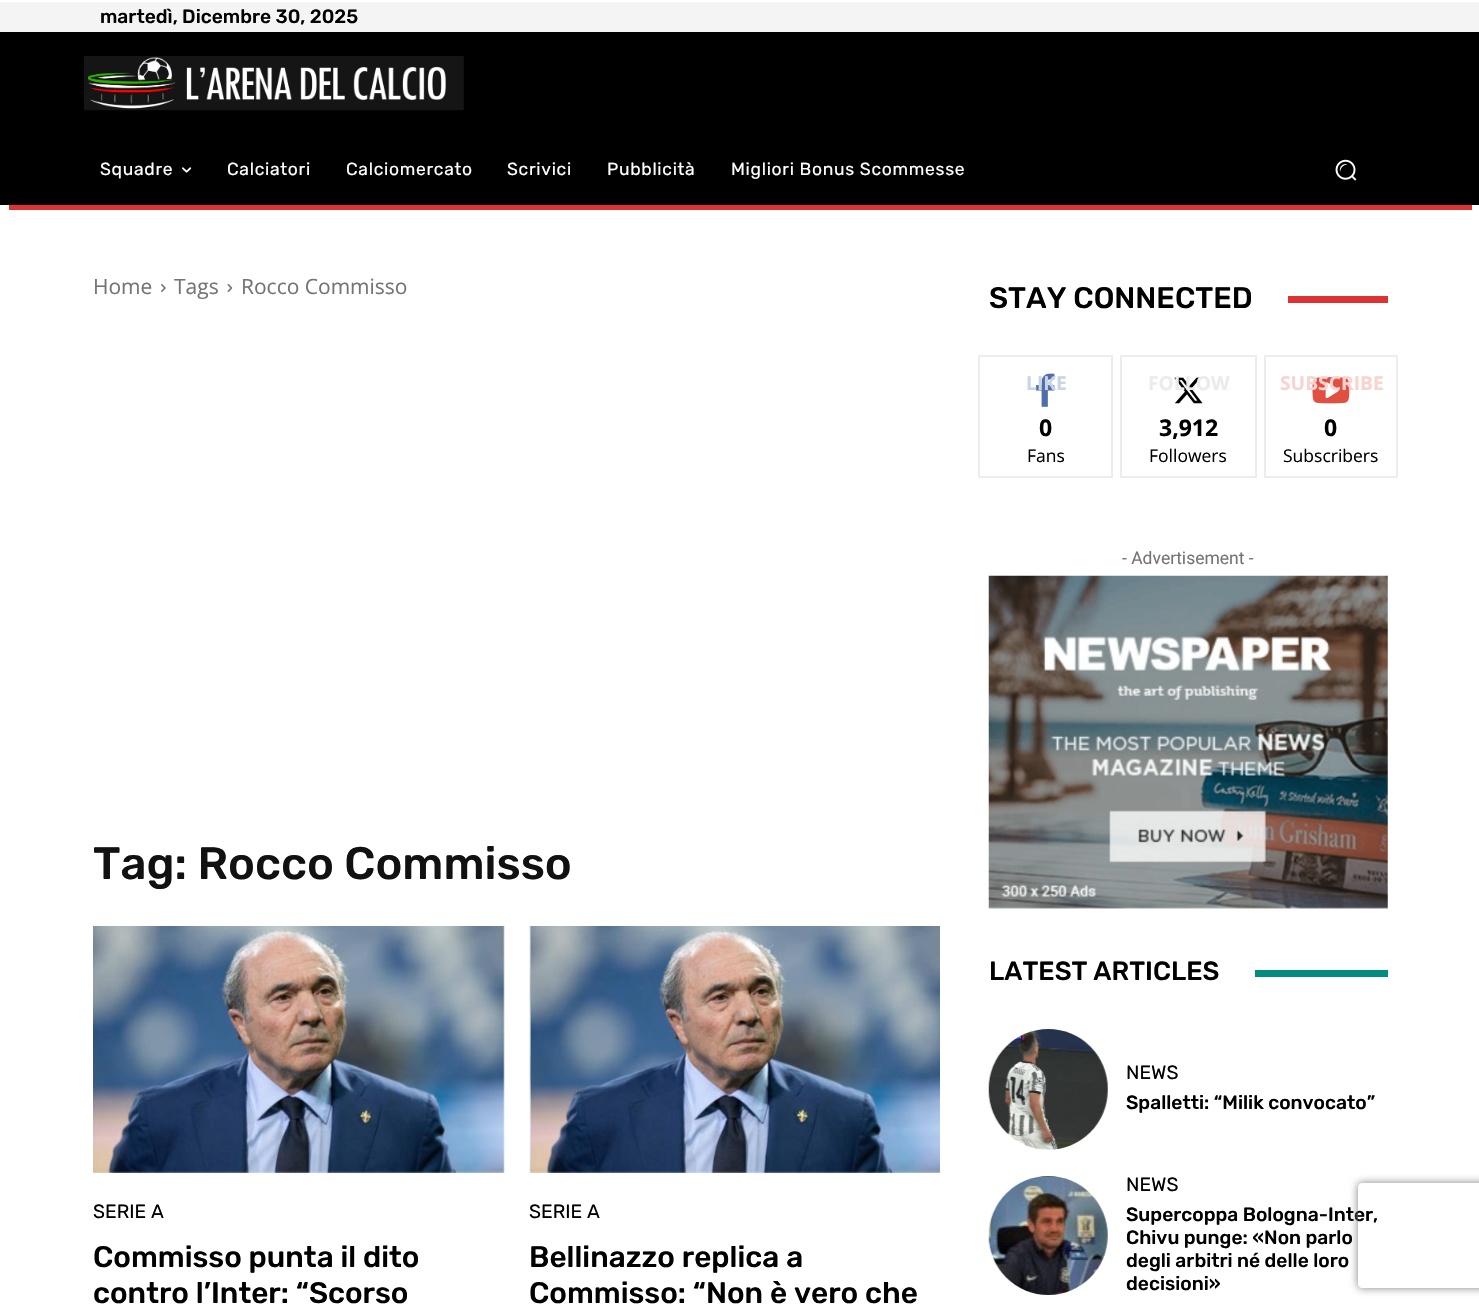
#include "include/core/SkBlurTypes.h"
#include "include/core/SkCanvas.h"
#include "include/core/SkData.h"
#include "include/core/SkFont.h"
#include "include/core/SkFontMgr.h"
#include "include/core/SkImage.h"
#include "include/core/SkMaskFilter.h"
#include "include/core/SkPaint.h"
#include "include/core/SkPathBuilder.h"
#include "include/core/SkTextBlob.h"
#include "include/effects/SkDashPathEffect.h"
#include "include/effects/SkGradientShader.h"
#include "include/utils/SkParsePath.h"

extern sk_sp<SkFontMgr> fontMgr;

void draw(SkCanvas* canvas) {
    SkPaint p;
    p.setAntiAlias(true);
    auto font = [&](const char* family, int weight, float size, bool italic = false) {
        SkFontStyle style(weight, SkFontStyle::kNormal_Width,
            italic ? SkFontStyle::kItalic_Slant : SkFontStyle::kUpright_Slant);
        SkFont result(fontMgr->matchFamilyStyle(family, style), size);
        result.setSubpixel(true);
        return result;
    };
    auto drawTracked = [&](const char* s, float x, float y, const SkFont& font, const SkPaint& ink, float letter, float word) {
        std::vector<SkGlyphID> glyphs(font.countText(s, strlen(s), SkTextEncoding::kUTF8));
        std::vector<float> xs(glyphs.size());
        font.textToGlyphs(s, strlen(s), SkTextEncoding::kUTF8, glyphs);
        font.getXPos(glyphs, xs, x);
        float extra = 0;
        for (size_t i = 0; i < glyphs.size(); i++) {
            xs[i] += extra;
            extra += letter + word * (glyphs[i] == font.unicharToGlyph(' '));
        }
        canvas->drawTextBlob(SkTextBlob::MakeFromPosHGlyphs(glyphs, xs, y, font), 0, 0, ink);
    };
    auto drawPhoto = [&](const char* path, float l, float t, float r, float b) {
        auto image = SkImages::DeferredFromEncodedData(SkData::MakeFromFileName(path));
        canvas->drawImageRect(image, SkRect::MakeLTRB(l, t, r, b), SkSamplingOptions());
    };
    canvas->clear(0xFFFFFFFF);
    p.setColor(0xFFF4F4F4);
    canvas->drawRect(SkRect::MakeLTRB(0, 2, 1479, 32), p);
    auto font1 = font("Rubik", 500, 19.25f);
    p.setColor(0xFF000000);
    canvas->drawString("martedì, Dicembre 30, 2025", 100, 23, font1, p);
    canvas->drawRect(SkRect::MakeLTRB(0, 32, 1479, 205), p);
    drawPhoto("media/1.png", 84, 56, 464, 111);
    auto font2 = font("Rubik", 400, 17.5f);
    p.setColor(0xFFFFFFFF);
    drawTracked("Squadre", 100, 175, font2, p, 0.7f, 0);
    drawPhoto("media/2.png", 182, 167, 192, 173);
    {
        const struct { const char* s; float x, y; } items[] = {
            {"Calciatori", 227, 175},
            {"Calciomercato", 346, 175},
            {"Scrivici", 507, 175},
            {"Pubblicità", 607, 175},
            {"Migliori Bonus Scommesse", 731, 175},
        };
        for (auto [s, x, y] : items) {
            drawTracked(s, x, y, font2, p, 0.7f, 0);
        }
    }
    drawPhoto("media/3.png", 1335, 159, 1357, 181);
    p.setColor(0xFFDD3333);
    canvas->drawRect(SkRect::MakeLTRB(9, 205, 1472, 210), p);
    auto font3 = font("Open Sans", 400, 21);
    p.setColor(0xFF747474);
    canvas->drawString("Home", 93, 294, font3, p);
    drawPhoto("media/4.png", 161, 284, 166, 292);
    canvas->drawString("Tags", 174, 294, font3, p);
    drawPhoto("media/5.png", 227, 284, 233, 292);
    canvas->drawString("Rocco Commisso", 241, 294, font3, p);
    auto font4 = font("Rubik", 500, 45.5f);
    p.setColor(0xFF111111);
    canvas->drawString("Tag: Rocco Commisso", 93, 879, font4, p);
    drawPhoto("media/6.png", 93, 926, 505, 1173);
    auto font5 = font("Rubik", 400, 19.25f);
    p.setColor(0xFF000000);
    canvas->drawString("SERIE A", 93, 1218, font5, p);
    auto font6 = font("Rubik", 500, 29.75f);
    canvas->drawString("Commisso punta il dito", 93, 1267, font6, p);
    canvas->drawString("contro l’Inter: “Scorso", 93, 1303, font6, p);
    drawPhoto("media/7.png", 529, 926, 940, 1173);
    canvas->drawString("SERIE A", 529, 1218, font5, p);
    {
        const struct { const char* s; float x, y; } items[] = {
            {"Bellinazzo replica a", 529, 1267},
            {"Commisso: “Non è vero che", 529, 1303},
            {"STAY CONNECTED", 989, 308},
        };
        for (auto [s, x, y] : items) {
            canvas->drawString(s, x, y, font6, p);
        }
    }
    p.setColor(0xFFDD3333);
    canvas->drawRect(SkRect::MakeLTRB(1288, 296, 1388, 303), p);
    p.setStyle(SkPaint::kStroke_Style);
    p.setStrokeWidth(2);
    p.setColor(0xFFEDEDED);
    canvas->drawRect(SkRect::MakeLTRB(979, 356, 1112, 477), p);
    drawPhoto("media/8.png", 1036, 373, 1055, 407);
    auto font7 = font("Open Sans", 700, 19.25f);
    p.setStyle(SkPaint::kFill_Style);
    p.setColor(0xFFCBD3E6);
    canvas->drawString("LIKE", 1026, 390, font7, p);
    auto font8 = font("Open Sans", 700, 23);
    p.setColor(0xFF000000);
    canvas->drawString("0", 1039, 436, font8, p);
    auto font9 = font("Open Sans", 400, 17.5f);
    canvas->drawString("Fans", 1027, 462, font9, p);
    p.setStyle(SkPaint::kStroke_Style);
    p.setColor(0xFFEDEDED);
    canvas->drawRect(SkRect::MakeLTRB(1121, 356, 1256, 477), p);
    drawPhoto("media/9.png", 1174, 377, 1203, 404);
    p.setStyle(SkPaint::kFill_Style);
    p.setColor(0xFFEBEBEB);
    canvas->drawString("FOLLOW", 1148, 390, font7, p);
    p.setColor(0xFF000000);
    canvas->drawString("3,912", 1159, 436, font8, p);
    canvas->drawString("Followers", 1149, 462, font9, p);
    p.setStyle(SkPaint::kStroke_Style);
    p.setColor(0xFFEDEDED);
    canvas->drawRect(SkRect::MakeLTRB(1265, 356, 1397, 477), p);
    drawPhoto("media/10.png", 1312, 377, 1350, 404);
    p.setStyle(SkPaint::kFill_Style);
    p.setColor(0xFFF8D4D1);
    canvas->drawString("SUBSCRIBE", 1280, 390, font7, p);
    p.setColor(0xFF000000);
    canvas->drawString("0", 1324, 436, font8, p);
    canvas->drawString("Subscribers", 1283, 462, font9, p);
    auto font10 = font("Roboto", 400, 17.5f);
    p.setColor(0xFF747474);
    canvas->drawString("- Advertisement -", 1122, 564, font10, p);
    drawPhoto("media/11.png", 988, 575, 1388, 909);
    auto font11 = font("Rubik", 500, 26.25f);
    p.setColor(0xFF000000);
    canvas->drawString("LATEST ARTICLES", 989, 980, font11, p);
    p.setColor(0xFF008D7F);
    canvas->drawRect(SkRect::MakeLTRB(1255, 970, 1388, 977), p);
    drawPhoto("media/12.png", 988, 1029, 1108, 1150);
    p.setColor(0xFF000000);
    canvas->drawString("NEWS", 1126, 1079, font5, p);
    canvas->drawString("Spalletti: “Milik convocato”", 1126, 1109, font1, p);
    drawPhoto("media/13.png", 988, 1176, 1108, 1295);
    canvas->drawString("NEWS", 1126, 1191, font5, p);
    {
        const struct { const char* s; float x, y; } items[] = {
            {"Supercoppa Bologna-Inter,", 1126, 1221},
            {"Chivu punge: «Non parlo", 1126, 1244},
            {"degli arbitri né delle loro", 1126, 1267},
            {"decisioni»", 1126, 1290},
        };
        for (auto [s, x, y] : items) {
            canvas->drawString(s, x, y, font1, p);
        }
    }
    canvas->save();
    canvas->clipPath(SkPathBuilder(SkPathFillType::kEvenOdd).moveTo(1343, 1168).lineTo(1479, 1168).lineTo(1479, 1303).lineTo(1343, 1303).close().moveTo(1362, 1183).lineTo(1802, 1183).cubicTo(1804, 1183, 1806, 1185, 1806, 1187).lineTo(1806, 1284).cubicTo(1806, 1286, 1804, 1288, 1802, 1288).lineTo(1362, 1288).cubicTo(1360, 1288, 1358, 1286, 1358, 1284).lineTo(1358, 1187).cubicTo(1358, 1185, 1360, 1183, 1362, 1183).close().detach(), true);
    p.setColor(0xFF808080);
    p.setMaskFilter(SkMaskFilter::MakeBlur(kNormal_SkBlurStyle, 4.5f));
    canvas->drawRoundRect(SkRect::MakeLTRB(1358, 1183, 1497, 1288), 4, 4, p);
    p.setMaskFilter(nullptr);
    canvas->restore();
}
